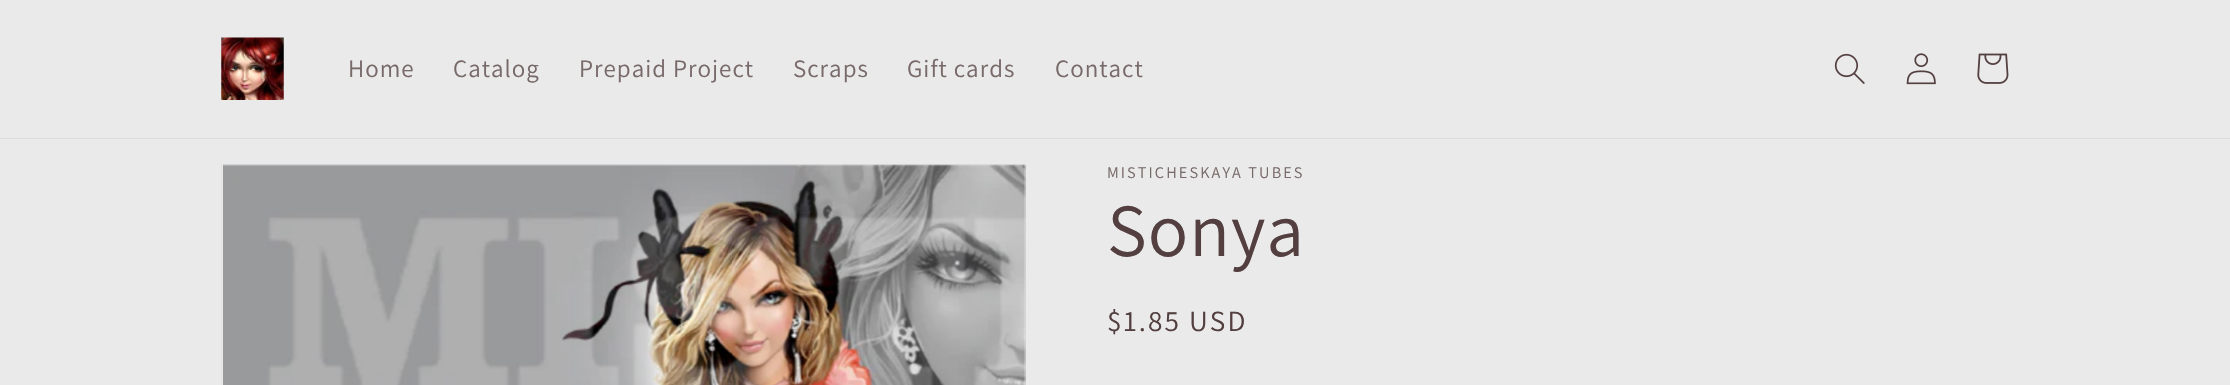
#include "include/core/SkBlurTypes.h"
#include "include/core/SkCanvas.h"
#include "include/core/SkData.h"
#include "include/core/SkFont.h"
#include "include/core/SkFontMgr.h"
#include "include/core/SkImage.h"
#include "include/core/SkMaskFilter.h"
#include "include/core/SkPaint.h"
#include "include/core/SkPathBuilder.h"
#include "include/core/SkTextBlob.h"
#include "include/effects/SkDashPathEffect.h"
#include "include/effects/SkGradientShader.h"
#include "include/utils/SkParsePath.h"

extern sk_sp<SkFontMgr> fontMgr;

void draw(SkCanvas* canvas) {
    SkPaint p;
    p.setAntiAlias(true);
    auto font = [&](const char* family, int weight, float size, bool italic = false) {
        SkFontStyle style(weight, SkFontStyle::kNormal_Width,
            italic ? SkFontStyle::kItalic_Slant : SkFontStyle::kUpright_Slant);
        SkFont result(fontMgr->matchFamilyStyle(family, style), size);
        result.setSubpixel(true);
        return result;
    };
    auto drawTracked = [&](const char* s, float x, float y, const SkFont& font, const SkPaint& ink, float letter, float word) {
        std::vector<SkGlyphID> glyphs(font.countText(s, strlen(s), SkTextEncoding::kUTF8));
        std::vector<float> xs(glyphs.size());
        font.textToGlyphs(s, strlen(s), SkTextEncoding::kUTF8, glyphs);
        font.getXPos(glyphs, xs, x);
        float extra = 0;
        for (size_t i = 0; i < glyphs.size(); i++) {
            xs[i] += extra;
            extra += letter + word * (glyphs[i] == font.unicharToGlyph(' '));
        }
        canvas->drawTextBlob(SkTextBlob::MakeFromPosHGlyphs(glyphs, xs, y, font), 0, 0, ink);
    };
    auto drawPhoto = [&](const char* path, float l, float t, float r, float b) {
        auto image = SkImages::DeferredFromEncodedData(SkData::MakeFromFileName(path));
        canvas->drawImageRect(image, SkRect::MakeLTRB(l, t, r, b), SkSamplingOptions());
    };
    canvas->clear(0xFFEAEAEA);
    p.setColor(0xFFDEDCDC);
    canvas->drawRect(SkRect::MakeLTRB(0, 138, 2230, 139), p);
    drawPhoto("media/1.png", 221, 37, 284, 100);
    auto font1 = font("Assistant", 400, 25);
    p.setColor(0xFF796A6A);
    {
        const struct { const char* s; float x, y; } items[] = {
            {"Home", 348, 77},
            {"Catalog", 453, 77},
            {"Prepaid Project", 579, 77},
            {"Scraps", 793, 77},
            {"Gift cards", 907, 77},
            {"Contact", 1055, 77},
        };
        for (auto [s, x, y] : items) {
            drawTracked(s, x, y, font1, p, 1, 0);
        }
    }
    drawPhoto("media/2.png", 1834, 53, 1865, 84);
    drawPhoto("media/3.png", 1906, 53, 1936, 85);
    drawPhoto("media/4.png", 1977, 53, 2009, 84);
    p.setStyle(SkPaint::kStroke_Style);
    p.setStrokeWidth(1);
    p.setColor(0xFFE2E1E1);
    canvas->drawRect(SkRect::MakeLTRB(221.5f, 164.5f, 1025.5f, 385.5f), p);
    drawPhoto("media/5.png", 223, 164, 1026, 385);
    auto font2 = font("Assistant", 400, 16.25f);
    p.setStyle(SkPaint::kFill_Style);
    p.setColor(0xFF796A6A);
    drawTracked("MISTICHESKAYA TUBES", 1107, 178, font2, p, 2.1f, 0);
    auto font3 = font("Assistant", 400, 75);
    p.setColor(0xFF533F3F);
    drawTracked("Sonya", 1107, 256, font3, p, 1, 0);
    auto font4 = font("Assistant", 400, 29.25f);
    drawTracked("$1.85 USD", 1107, 331, font4, p, 2.1f, 0);
}
